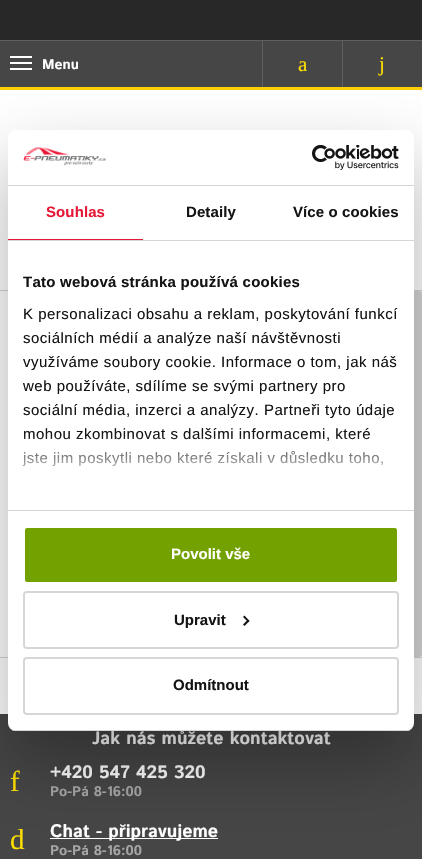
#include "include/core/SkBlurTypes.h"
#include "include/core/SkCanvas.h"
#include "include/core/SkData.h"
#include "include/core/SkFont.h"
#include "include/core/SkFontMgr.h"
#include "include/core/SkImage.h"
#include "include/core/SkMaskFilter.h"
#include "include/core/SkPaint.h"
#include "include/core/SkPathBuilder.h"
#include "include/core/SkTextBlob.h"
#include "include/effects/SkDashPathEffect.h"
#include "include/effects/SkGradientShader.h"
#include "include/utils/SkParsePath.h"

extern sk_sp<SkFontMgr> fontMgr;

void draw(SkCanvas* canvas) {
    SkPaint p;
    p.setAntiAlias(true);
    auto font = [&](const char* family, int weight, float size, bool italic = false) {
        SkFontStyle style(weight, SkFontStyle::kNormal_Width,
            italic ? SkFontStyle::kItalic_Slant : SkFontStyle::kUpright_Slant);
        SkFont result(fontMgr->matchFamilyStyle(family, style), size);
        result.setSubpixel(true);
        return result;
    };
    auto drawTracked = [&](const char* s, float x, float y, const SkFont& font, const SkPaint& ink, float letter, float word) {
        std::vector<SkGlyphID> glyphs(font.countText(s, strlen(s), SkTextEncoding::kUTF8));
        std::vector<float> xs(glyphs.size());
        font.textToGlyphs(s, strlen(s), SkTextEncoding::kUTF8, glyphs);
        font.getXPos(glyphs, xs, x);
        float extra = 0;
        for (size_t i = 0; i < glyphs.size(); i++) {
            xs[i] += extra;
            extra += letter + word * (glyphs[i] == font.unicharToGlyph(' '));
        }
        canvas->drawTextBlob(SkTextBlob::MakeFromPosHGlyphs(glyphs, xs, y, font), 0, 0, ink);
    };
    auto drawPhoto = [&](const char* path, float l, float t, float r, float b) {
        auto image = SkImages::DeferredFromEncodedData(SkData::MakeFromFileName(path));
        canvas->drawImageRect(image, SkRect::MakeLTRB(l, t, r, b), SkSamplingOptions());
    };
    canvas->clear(0xFFFFFFFF);
    {
        const struct { float l, t, r, b; SkColor color; } items[] = {
            {0, 0, 422, 40, 0xFF282828},
            {0, 41, 422, 87, 0xFF464646},
            {0, 40, 422, 41, 0xFF5F5F5F},
            {0, 87, 422, 90, 0xFFFFCF06},
            {10, 62, 32, 64, 0xFFFFFFFF},
            {10, 56, 32, 58, 0xFFFFFFFF},
            {10, 68, 32, 70, 0xFFFFFFFF},
        };
        for (auto [l, t, r, b, color] : items) {
            p.setColor(color);
            canvas->drawRect(SkRect::MakeLTRB(l, t, r, b), p);
        }
    }
    auto font1 = font("Istok Web", 700, 14);
    canvas->drawString("Menu", 42, 69, font1, p);
    p.setColor(0xFF5F5F5F);
    canvas->drawRect(SkRect::MakeLTRB(262, 41, 263, 87), p);
    auto font2 = font("Liberation Serif", 400, 21);
    p.setColor(0xFFFFDE01);
    canvas->drawString("a", 298, 71, font2, p);
    p.setColor(0xFF5F5F5F);
    canvas->drawRect(SkRect::MakeLTRB(342, 41, 343, 87), p);
    p.setColor(0xFFFFDE01);
    canvas->drawString("j", 379, 71, font2, p);
    p.setColor(0xFFD6D6D6);
    canvas->drawRect(SkRect::MakeLTRB(0, 290, 422, 291), p);
    canvas->drawRect(SkRect::MakeLTRB(0, 657, 422, 658), p);
    canvas->drawRoundRect(SkRect::MakeLTRB(0, 291, 422, 657), 3, 3, p);
    p.setColor(0xFFFFFFFF);
    canvas->drawRect(SkRect::MakeLTRB(0, 291, 8, 657), p);
    p.setColor(0xFF464646);
    canvas->drawRect(SkRect::MakeLTRB(0, 714, 422, 859), p);
    auto font3 = font("Istok Web", 700, 18);
    p.setColor(0xFFFFFFFF);
    canvas->drawString("Jak nás můžete kontaktovat", 92, 744, font3, p);
    auto font4 = font("Liberation Serif", 400, 29);
    p.setColor(0xFFFFDE01);
    canvas->drawString("f", 10, 791, font4, p);
    p.setColor(0xFFFFFFFF);
    canvas->drawString("+420 547 425 320", 50, 778, font3, p);
    p.setColor(0xFFA6A6A6);
    canvas->drawString("Po-Pá 8-16:00", 50, 796, font1, p);
    p.setColor(0xFFFFDE01);
    canvas->drawString("d", 10, 849, font4, p);
    p.setColor(0xFFFFFFFF);
    canvas->drawRect(SkRect::MakeLTRB(50, 838, 218, 839), p);
    canvas->drawString("Chat - připravujeme", 50, 837, font3, p);
    p.setColor(0xFFA6A6A6);
    canvas->drawString("Po-Pá 8-16:00", 50, 855, font1, p);
    p.setColor(0x4D000000);
    p.setMaskFilter(SkMaskFilter::MakeBlur(kNormal_SkBlurStyle, 34));
    canvas->drawRoundRect(SkRect::MakeLTRB(8, 162, 414, 763), 8, 8, p);
    p.setMaskFilter(nullptr);
    p.setColor(0xFFFFFFFF);
    canvas->drawRoundRect(SkRect::MakeLTRB(8, 130, 414, 731), 8, 8, p);
    p.setColor(0xFFD6D6D6);
    canvas->drawRect(SkRect::MakeLTRB(8, 185, 414, 186), p);
    drawPhoto("media/1.png", 23, 147, 107, 166);
    drawPhoto("media/2.png", 312, 145, 399, 170);
    canvas->drawRect(SkRect::MakeLTRB(8, 240, 414, 241), p);
    p.setColor(0xFFE51937);
    canvas->drawRect(SkRect::MakeLTRB(8, 239, 143, 240), p);
    auto font5 = font("Liberation Sans", 700, 15);
    drawTracked("Souhlas", 46, 217, font5, p, 0.1f, 0);
    p.setColor(0xFF141414);
    drawTracked("Detaily", 186, 217, font5, p, 0.1f, 0);
    drawTracked("Více o cookies", 293, 217, font5, p, 0.1f, 0);
    p.setColor(0xFFD6D6D6);
    canvas->drawRect(SkRect::MakeLTRB(8, 510, 414, 511), p);
    p.setColor(0xFF141414);
    drawTracked("Tato webová stránka používá cookies", 23, 287, font5, p, 0.25f, 0);
    auto font6 = font("Liberation Sans", 400, 15);
    {
        const struct { const char* s; float x, y; } items[] = {
            {"K personalizaci obsahu a reklam, poskytování funkcí", 23, 319},
            {"sociálních médií a analýze naší návštěvnosti", 23, 343},
            {"využíváme soubory cookie. Informace o tom, jak náš", 23, 367},
            {"web používáte, sdílíme se svými partnery pro", 23, 391},
            {"sociální média, inzerci a analýzy. Partneři tyto údaje", 23, 415},
            {"mohou zkombinovat s dalšími informacemi, které", 23, 439},
            {"jste jim poskytli nebo které získali v důsledku toho,", 23, 463},
        };
        for (auto [s, x, y] : items) {
            drawTracked(s, x, y, font6, p, 0.5f, 0);
        }
    }
    {
        const SkColor colors[] = {0xFFFFFFFF, 0xCCFFFFFF, 0x00FFFFFF};
        const float stops[] = {0, 0.5f, 1};
        const SkPoint ends[] = {{205, 510}, {205, 435}};
        p.setShader(SkGradientShader::MakeLinear(ends, colors, stops, 3, SkTileMode::kClamp));
        p.setAlpha(255);
    }
    canvas->drawRect(SkRect::MakeLTRB(22, 436, 383, 467), p);
    canvas->save();
    canvas->clipPath(SkPathBuilder().moveTo(16, 130).lineTo(406, 130).cubicTo(410.5f, 130, 414, 133.5f, 414, 138).lineTo(414, 723).cubicTo(414, 727.5f, 410.5f, 731, 406, 731).lineTo(16, 731).cubicTo(11.5f, 731, 8, 727.5f, 8, 723).lineTo(8, 138).cubicTo(8, 133.5f, 11.5f, 130, 16, 130).close().detach(), true);
    p.setShader(nullptr);
    p.setColor(0xFFD6D6D6);
    canvas->drawRect(SkRect::MakeLTRB(8, 730, 414, 731), p);
    canvas->restore();
    p.setColor(0xFF73A200);
    canvas->drawRoundRect(SkRect::MakeLTRB(24, 527, 398, 583), 3, 3, p);
    p.setStyle(SkPaint::kStroke_Style);
    p.setStrokeWidth(2);
    p.setColor(0xFFFFFFFF);
    canvas->drawRoundRect(SkRect::MakeLTRB(24, 527, 398, 583), 3, 3, p);
    p.setStyle(SkPaint::kFill_Style);
    canvas->drawString("Povolit vše", 171, 559, font5, p);
    p.setStyle(SkPaint::kStroke_Style);
    p.setColor(0xFFD6D6D6);
    canvas->drawRoundRect(SkRect::MakeLTRB(24, 592, 398, 648), 3, 3, p);
    p.setStyle(SkPaint::kFill_Style);
    p.setColor(0xFF141414);
    canvas->drawString("Upravit", 174, 625, font5, p);
    canvas->drawPath(SkPathBuilder().moveTo(244.5f, 615.5f).lineTo(249.5f, 621).lineTo(248, 622).lineTo(243, 617).close().detach(), p);
    canvas->drawPath(SkPathBuilder().moveTo(248, 619.5f).lineTo(249.5f, 621).lineTo(244.5f, 626).lineTo(243, 624.5f).close().detach(), p);
    p.setStyle(SkPaint::kStroke_Style);
    p.setColor(0xFFD6D6D6);
    canvas->drawRoundRect(SkRect::MakeLTRB(24, 658, 398, 714), 3, 3, p);
    p.setStyle(SkPaint::kFill_Style);
    p.setColor(0xFF141414);
    canvas->drawString("Odmítnout", 173, 690, font5, p);
}
